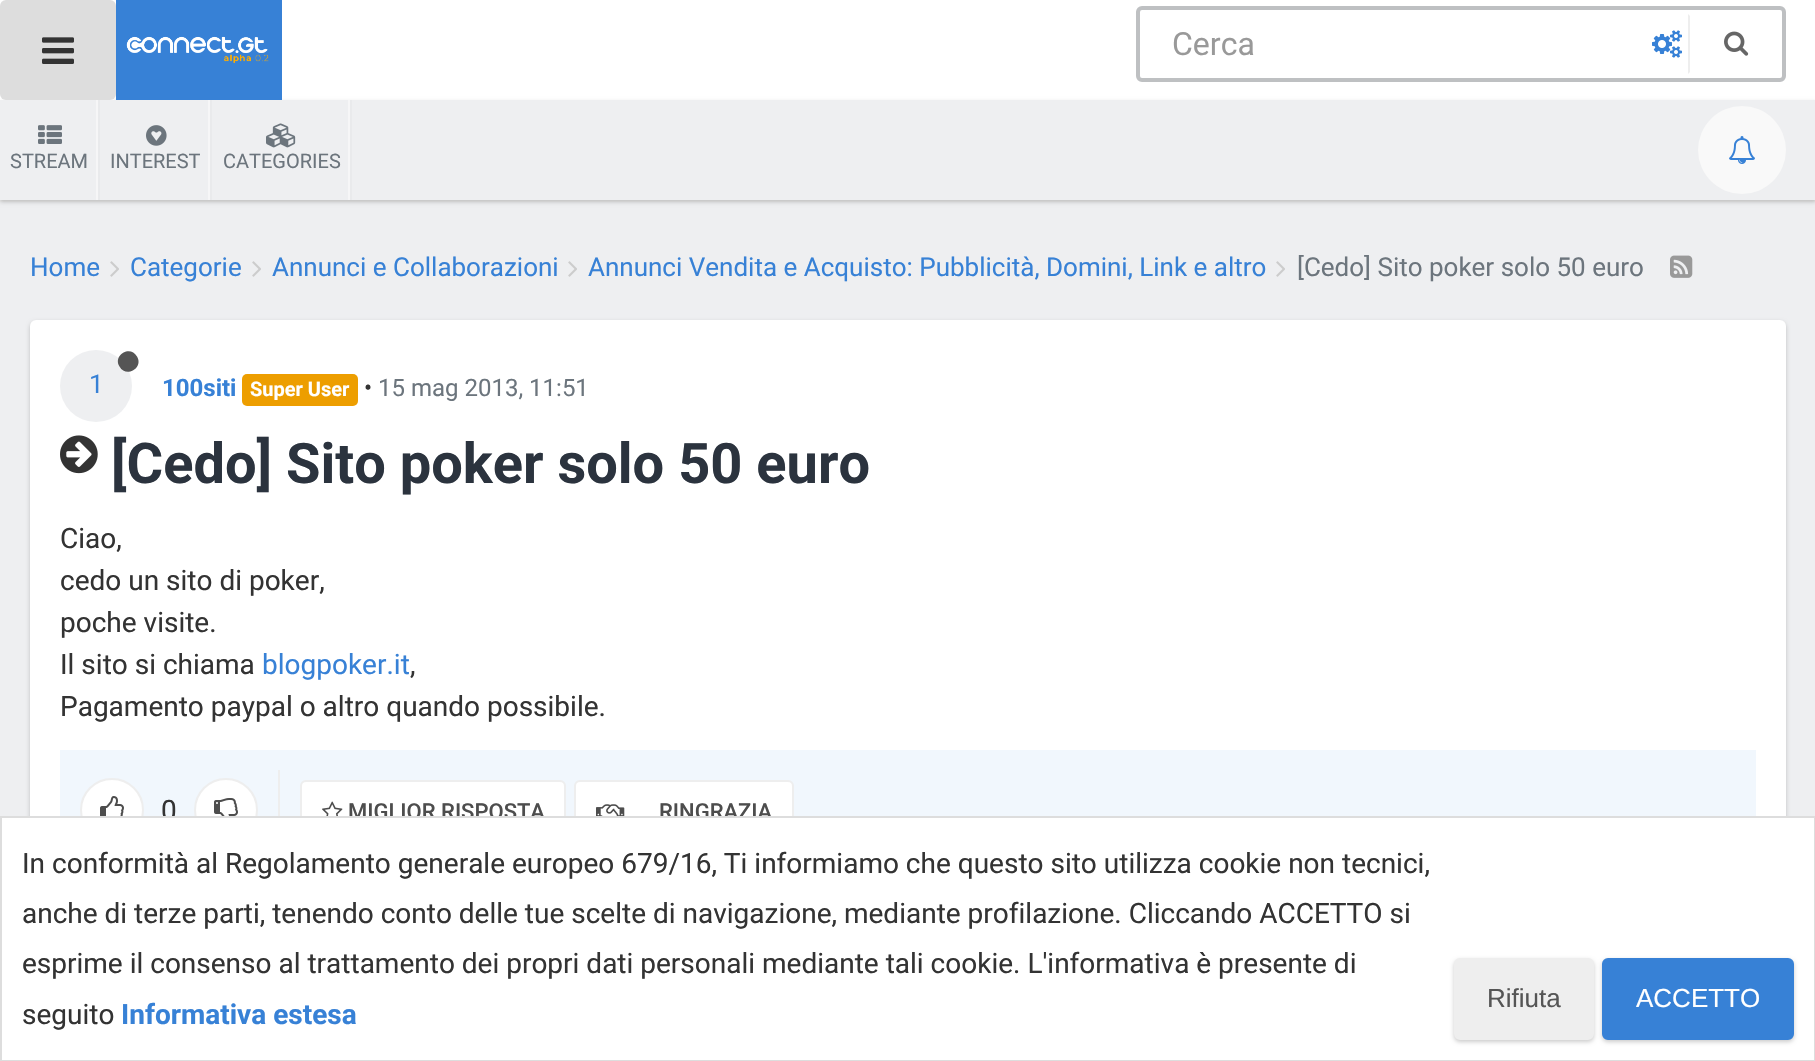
#include "include/core/SkBlurTypes.h"
#include "include/core/SkCanvas.h"
#include "include/core/SkData.h"
#include "include/core/SkFont.h"
#include "include/core/SkFontMgr.h"
#include "include/core/SkImage.h"
#include "include/core/SkMaskFilter.h"
#include "include/core/SkPaint.h"
#include "include/core/SkPathBuilder.h"
#include "include/core/SkTextBlob.h"
#include "include/effects/SkDashPathEffect.h"
#include "include/effects/SkGradientShader.h"
#include "include/utils/SkParsePath.h"

extern sk_sp<SkFontMgr> fontMgr;

void draw(SkCanvas* canvas) {
    SkPaint p;
    p.setAntiAlias(true);
    auto font = [&](const char* family, int weight, float size, bool italic = false) {
        SkFontStyle style(weight, SkFontStyle::kNormal_Width,
            italic ? SkFontStyle::kItalic_Slant : SkFontStyle::kUpright_Slant);
        SkFont result(fontMgr->matchFamilyStyle(family, style), size);
        result.setSubpixel(true);
        return result;
    };
    auto drawPhoto = [&](const char* path, float l, float t, float r, float b) {
        auto image = SkImages::DeferredFromEncodedData(SkData::MakeFromFileName(path));
        canvas->drawImageRect(image, SkRect::MakeLTRB(l, t, r, b), SkSamplingOptions());
    };
    canvas->clear(0xFFEEEFF1);
    p.setColor(0xFFFFFFFF);
    canvas->drawRect(SkRect::MakeLTRB(0, 0, 1815, 100), p);
    p.setColor(0xFFEEEEEE);
    canvas->drawRect(SkRect::MakeLTRB(0, 200, 1815, 202), p);
    p.setColor(0x33000000);
    p.setMaskFilter(SkMaskFilter::MakeBlur(kNormal_SkBlurStyle, 2));
    canvas->drawRect(SkRect::MakeLTRB(0, 102, 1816, 202), p);
    p.setMaskFilter(nullptr);
    p.setColor(0xFFDDDDDD);
    canvas->drawRoundRect(SkRect::MakeLTRB(0, 0, 116, 100), 6, 6, p);
    drawPhoto("media/1.png", 42, 37, 74, 64);
    p.setColor(0xFF3781D6);
    canvas->drawRect(SkRect::MakeLTRB(116, 0, 282, 100), p);
    drawPhoto("media/2.png", 126, 36, 269, 63);
    p.setStyle(SkPaint::kStroke_Style);
    p.setStrokeWidth(4);
    p.setColor(0xFFBEC0C2);
    canvas->drawRoundRect(SkRect::MakeLTRB(1138, 8, 1784, 80), 4, 4, p);
    auto font1 = font("Roboto", 400, 32);
    p.setStyle(SkPaint::kFill_Style);
    p.setColor(0xFF999999);
    canvas->drawString("Cerca", 1172, 55, font1, p);
    drawPhoto("media/3.png", 1652, 30, 1682, 58);
    p.setColor(0xFFEEEEEE);
    canvas->drawPath(SkPathBuilder().moveTo(1688, 74).lineTo(1688, 14).lineTo(1690, 16).lineTo(1690, 72).close().detach(), p);
    drawPhoto("media/4.png", 1724, 31, 1749, 56);
    {
        const struct { float l, t, r, b; SkColor color; } items[] = {
            {0, 100, 1815, 200, 0xFFEEEFF1},
            {96, 100, 98, 200, 0xFFF6F6F7},
            {98, 100, 100, 200, 0xFFE9EAEC},
        };
        for (auto [l, t, r, b, color] : items) {
            p.setColor(color);
            canvas->drawRect(SkRect::MakeLTRB(l, t, r, b), p);
        }
    }
    drawPhoto("media/5.png", 38, 125, 62, 144);
    auto font2 = font("Roboto", 400, 20);
    p.setColor(0xFF6C757D);
    canvas->drawString("STREAM", 10, 168, font2, p);
    p.setColor(0xFFF6F6F7);
    canvas->drawRect(SkRect::MakeLTRB(208, 100, 210, 200), p);
    p.setColor(0xFFE9EAEC);
    canvas->drawRect(SkRect::MakeLTRB(210, 100, 212, 200), p);
    drawPhoto("media/6.png", 146, 125, 167, 146);
    p.setColor(0xFF6C757D);
    canvas->drawString("INTEREST", 110, 168, font2, p);
    p.setColor(0xFFF6F6F7);
    canvas->drawRect(SkRect::MakeLTRB(348, 100, 350, 200), p);
    p.setColor(0xFFE9EAEC);
    canvas->drawRect(SkRect::MakeLTRB(350, 100, 352, 200), p);
    drawPhoto("media/7.png", 266, 123, 296, 148);
    p.setColor(0xFF6C757D);
    canvas->drawString("CATEGORIES", 223, 168, font2, p);
    p.setColor(0xFFF9F9F9);
    canvas->drawCircle(1742, 150, 44, p);
    drawPhoto("media/8.png", 1729, 136, 1755, 164);
    auto font3 = font("Roboto", 400, 26);
    p.setColor(0xFF3781D6);
    canvas->drawString("Home", 30, 276, font3, p);
    drawPhoto("media/9.png", 110, 261, 119, 277);
    canvas->drawString("Categorie", 130, 276, font3, p);
    drawPhoto("media/9.png", 252, 261, 261, 277);
    canvas->drawString("Annunci e Collaborazioni", 272, 276, font3, p);
    drawPhoto("media/9.png", 568, 261, 577, 277);
    canvas->drawString("Annunci Vendita e Acquisto: Pubblicità, Domini, Link e altro", 588, 276, font3, p);
    drawPhoto("media/9.png", 1276, 261, 1285, 277);
    p.setColor(0xFF6C757D);
    canvas->drawString("[Cedo] Sito poker solo 50 euro", 1297, 276, font3, p);
    drawPhoto("media/10.png", 1670, 255, 1693, 278);
    p.setColor(0x33000000);
    p.setMaskFilter(SkMaskFilter::MakeBlur(kNormal_SkBlurStyle, 2));
    canvas->drawRoundRect(SkRect::MakeLTRB(30, 322, 1786, 912), 6, 6, p);
    p.setMaskFilter(nullptr);
    p.setColor(0xFFFFFFFF);
    canvas->drawRoundRect(SkRect::MakeLTRB(30, 320, 1786, 910), 6, 6, p);
    p.setColor(0xFFEEEFF1);
    canvas->drawCircle(96, 386, 36, p);
    p.setColor(0xFF555555);
    canvas->drawPath(SkPathBuilder().moveTo(137, 356.5f).cubicTo(144, 368, 126, 378.5f, 119.5f, 366.5f).cubicTo(112.5f, 355, 130.5f, 344.5f, 137, 356.5f).close().detach(), p);
    p.setColor(0xFF3781D6);
    canvas->drawString("1", 89, 393, font3, p);
    auto font4 = font("Roboto", 700, 24);
    canvas->drawString("100siti", 162, 396, font4, p);
    p.setColor(0xFFED9E00);
    canvas->drawRoundRect(SkRect::MakeLTRB(242, 374, 358, 406), 5, 5, p);
    auto font5 = font("Roboto", 700, 20);
    p.setColor(0xFFFFFFFF);
    canvas->drawString("Super User", 250, 396, font5, p);
    auto font6 = font("Roboto", 400, 24);
    p.setColor(0xFF333333);
    canvas->drawString("•", 364, 396, font6, p);
    p.setColor(0xFF6C757D);
    canvas->drawString("15 mag 2013, 11:51", 378, 396, font6, p);
    drawPhoto("media/11.png", 60, 435, 98, 474);
    auto font7 = font("Roboto", 700, 56);
    p.setColor(0xFF2B333E);
    canvas->drawString("[Cedo] Sito poker solo 50 euro", 111, 483, font7, p);
    auto font8 = font("Roboto", 400, 28);
    p.setColor(0xFF333333);
    {
        const struct { const char* s; float x, y; } items[] = {
            {"Ciao,", 60, 548},
            {"cedo un sito di poker,", 60, 590},
            {"poche visite.", 60, 632},
            {"Il sito si chiama", 60, 674},
        };
        for (auto [s, x, y] : items) {
            canvas->drawString(s, x, y, font8, p);
        }
    }
    p.setColor(0xFF3781D6);
    canvas->drawString("blogpoker.it", 262, 674, font8, p);
    p.setColor(0xFF333333);
    canvas->drawString(",", 410, 674, font8, p);
    canvas->drawString("Pagamento paypal o altro quando possibile.", 60, 716, font8, p);
    p.setColor(0xFFF1F7FD);
    canvas->drawRect(SkRect::MakeLTRB(60, 750, 1756, 816), p);
    p.setColor(0xFFEEEEEE);
    canvas->drawRect(SkRect::MakeLTRB(278, 770, 280, 816), p);
    p.setColor(0xFFFFFFFF);
    canvas->drawCircle(112, 810, 31, p);
    p.setStyle(SkPaint::kStroke_Style);
    p.setStrokeWidth(2);
    p.setColor(0xFFEEEEEE);
    canvas->drawCircle(112, 810, 31, p);
    drawPhoto("media/12.png", 100, 796, 124, 816);
    p.setStyle(SkPaint::kFill_Style);
    p.setColor(0xFF333333);
    canvas->drawString("0", 161, 820, font8, p);
    p.setColor(0xFFFFFFFF);
    canvas->drawCircle(226, 810, 31, p);
    p.setStyle(SkPaint::kStroke_Style);
    p.setColor(0xFFEEEEEE);
    canvas->drawCircle(226, 810, 31, p);
    drawPhoto("media/13.png", 214, 798, 238, 816);
    p.setStyle(SkPaint::kFill_Style);
    p.setColor(0xFFFFFFFF);
    canvas->drawRoundRect(SkRect::MakeLTRB(301, 781, 565, 841), 5, 5, p);
    p.setStyle(SkPaint::kStroke_Style);
    p.setColor(0xFFEEEEEE);
    canvas->drawRoundRect(SkRect::MakeLTRB(301, 781, 565, 841), 5, 5, p);
    drawPhoto("media/14.png", 322, 801, 343, 816);
    auto font9 = font("Roboto", 500, 22);
    p.setStyle(SkPaint::kFill_Style);
    p.setColor(0xFF4D4D4D);
    canvas->drawString("MIGLIOR RISPOSTA", 348, 819, font9, p);
    p.setColor(0xFFFFFFFF);
    canvas->drawRoundRect(SkRect::MakeLTRB(575, 781, 793, 841), 5, 5, p);
    p.setStyle(SkPaint::kStroke_Style);
    p.setColor(0xFFEEEEEE);
    canvas->drawRoundRect(SkRect::MakeLTRB(575, 781, 793, 841), 5, 5, p);
    drawPhoto("media/15.png", 596, 804, 625, 816);
    p.setStyle(SkPaint::kFill_Style);
    p.setColor(0xFF4D4D4D);
    canvas->drawString("RINGRAZIA", 659, 819, font9, p);
    p.setColor(0xFFFFFFFF);
    canvas->drawRect(SkRect::MakeLTRB(1, 817, 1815, 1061), p);
    p.setStyle(SkPaint::kStroke_Style);
    p.setColor(0xFFDDDDDD);
    canvas->drawRect(SkRect::MakeLTRB(1, 817, 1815, 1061), p);
    p.setStyle(SkPaint::kFill_Style);
    p.setColor(0xFF333333);
    {
        const struct { const char* s; float x, y; } items[] = {
            {"In conformità al Regolamento generale europeo 679/16, Ti informiamo che questo sito utilizza cookie non tecnici,", 22, 873},
            {"anche di terze parti, tenendo conto delle tue scelte di navigazione, mediante profilazione. Cliccando ACCETTO si", 22, 923},
            {"esprime il consenso al trattamento dei propri dati personali mediante tali cookie. L'informativa è presente di", 22, 973},
            {"seguito", 22, 1024},
        };
        for (auto [s, x, y] : items) {
            canvas->drawString(s, x, y, font8, p);
        }
    }
    auto font10 = font("Roboto", 700, 28);
    p.setColor(0xFF3781D6);
    canvas->drawString("Informativa estesa", 121, 1024, font10, p);
    p.setColor(0x33000000);
    p.setMaskFilter(SkMaskFilter::MakeBlur(kNormal_SkBlurStyle, 2));
    canvas->drawRoundRect(SkRect::MakeLTRB(1454, 960, 1594, 1042), 6, 6, p);
    p.setMaskFilter(nullptr);
    p.setColor(0xFFEEEEEE);
    canvas->drawRoundRect(SkRect::MakeLTRB(1455, 959, 1593, 1039), 5, 5, p);
    p.setStyle(SkPaint::kStroke_Style);
    canvas->drawRoundRect(SkRect::MakeLTRB(1455, 959, 1593, 1039), 5, 5, p);
    auto font11 = font("Liberation Sans", 400, 26);
    p.setStyle(SkPaint::kFill_Style);
    p.setColor(0xFF555555);
    canvas->drawString("Rifiuta", 1487, 1007, font11, p);
    p.setColor(0x33000000);
    p.setMaskFilter(SkMaskFilter::MakeBlur(kNormal_SkBlurStyle, 2));
    canvas->drawRoundRect(SkRect::MakeLTRB(1602, 960, 1794, 1042), 6, 6, p);
    p.setMaskFilter(nullptr);
    p.setColor(0xFF3781D6);
    canvas->drawRoundRect(SkRect::MakeLTRB(1603, 959, 1793, 1039), 5, 5, p);
    p.setStyle(SkPaint::kStroke_Style);
    canvas->drawRoundRect(SkRect::MakeLTRB(1603, 959, 1793, 1039), 5, 5, p);
    p.setStyle(SkPaint::kFill_Style);
    p.setColor(0xFFFFFFFF);
    canvas->drawString("ACCETTO", 1636, 1007, font11, p);
}
